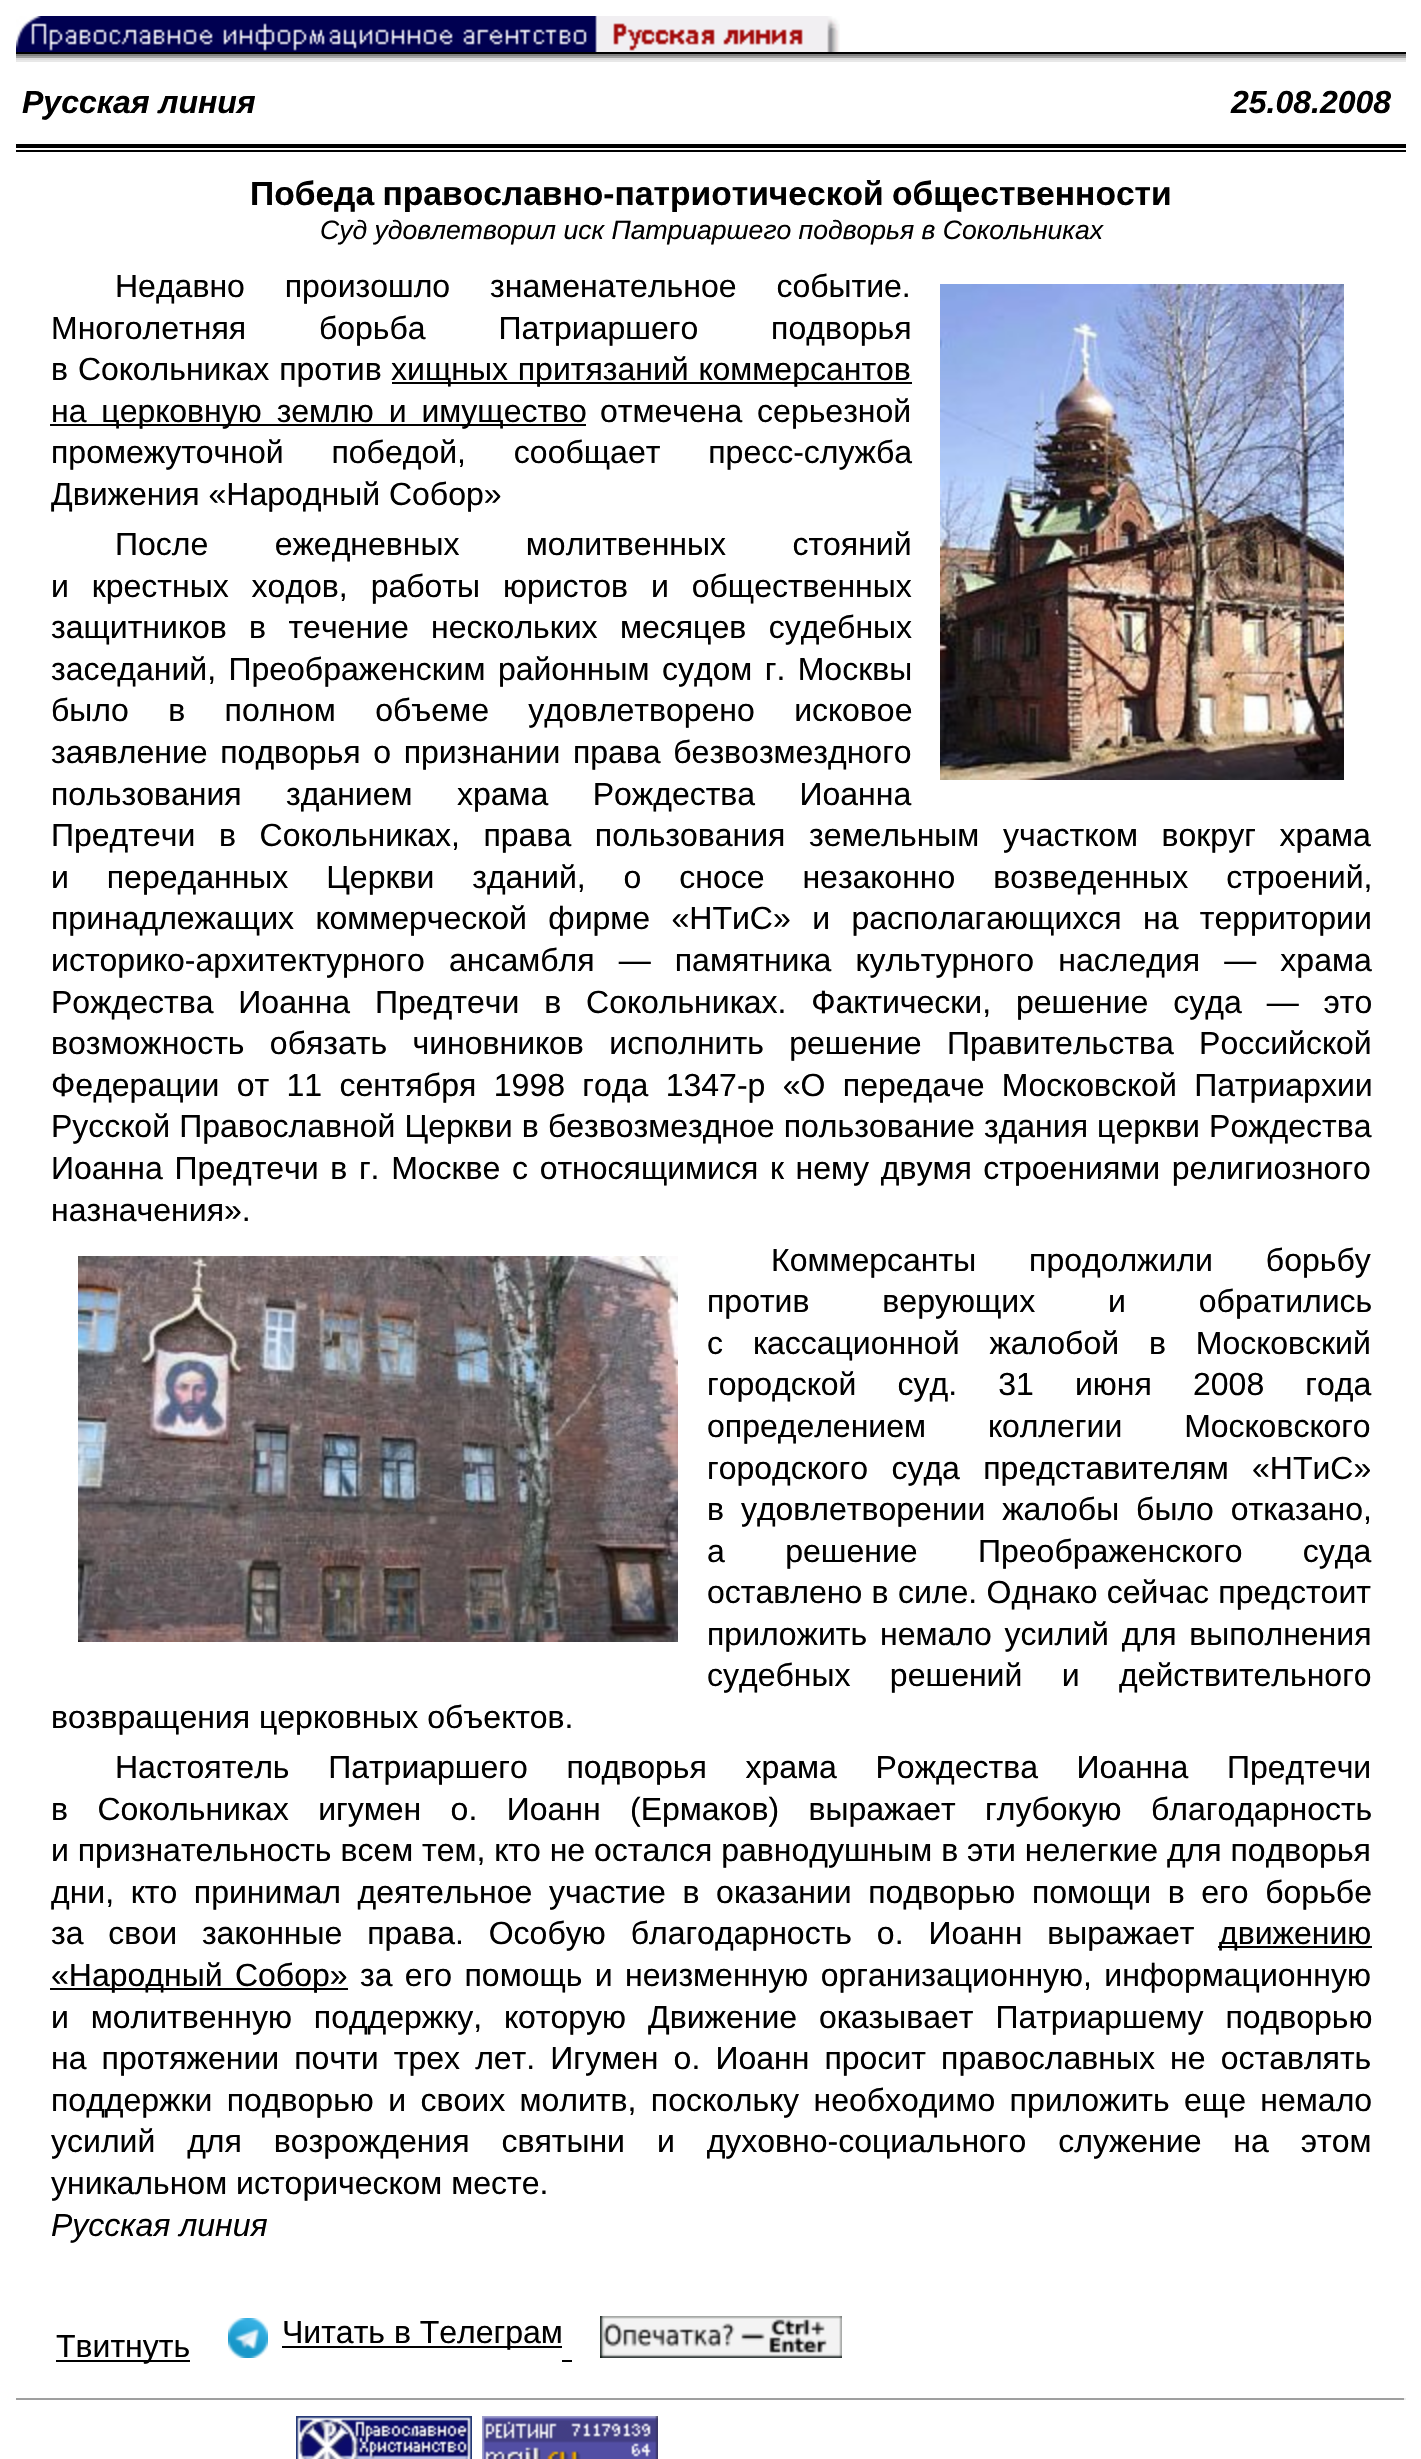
#include "include/core/SkBlurTypes.h"
#include "include/core/SkCanvas.h"
#include "include/core/SkData.h"
#include "include/core/SkFont.h"
#include "include/core/SkFontMgr.h"
#include "include/core/SkImage.h"
#include "include/core/SkMaskFilter.h"
#include "include/core/SkPaint.h"
#include "include/core/SkPathBuilder.h"
#include "include/core/SkTextBlob.h"
#include "include/effects/SkDashPathEffect.h"
#include "include/effects/SkGradientShader.h"
#include "include/utils/SkParsePath.h"

extern sk_sp<SkFontMgr> fontMgr;

void draw(SkCanvas* canvas) {
    SkPaint p;
    p.setAntiAlias(true);
    auto font = [&](const char* family, int weight, float size, bool italic = false) {
        SkFontStyle style(weight, SkFontStyle::kNormal_Width,
            italic ? SkFontStyle::kItalic_Slant : SkFontStyle::kUpright_Slant);
        SkFont result(fontMgr->matchFamilyStyle(family, style), size);
        result.setSubpixel(true);
        return result;
    };
    auto drawTracked = [&](const char* s, float x, float y, const SkFont& font, const SkPaint& ink, float letter, float word) {
        std::vector<SkGlyphID> glyphs(font.countText(s, strlen(s), SkTextEncoding::kUTF8));
        std::vector<float> xs(glyphs.size());
        font.textToGlyphs(s, strlen(s), SkTextEncoding::kUTF8, glyphs);
        font.getXPos(glyphs, xs, x);
        float extra = 0;
        for (size_t i = 0; i < glyphs.size(); i++) {
            xs[i] += extra;
            extra += letter + word * (glyphs[i] == font.unicharToGlyph(' '));
        }
        canvas->drawTextBlob(SkTextBlob::MakeFromPosHGlyphs(glyphs, xs, y, font), 0, 0, ink);
    };
    auto drawPhoto = [&](const char* path, float l, float t, float r, float b) {
        auto image = SkImages::DeferredFromEncodedData(SkData::MakeFromFileName(path));
        canvas->drawImageRect(image, SkRect::MakeLTRB(l, t, r, b), SkSamplingOptions());
    };
    canvas->clear(0xFFFFFFFF);
    drawPhoto("media/1.png", 16, 16, 840, 52);
    {
        const struct { float l, t, r, b; SkColor color; } items[] = {
            {16, 52, 1406, 54, 0xFF000000},
            {16, 54, 1406, 56, 0xFF808080},
            {16, 56, 1406, 58, 0xFFA2A2A2},
            {16, 58, 1406, 60, 0xFFDDDDDD},
            {16, 60, 1406, 62, 0xFFE8E8E8},
        };
        for (auto [l, t, r, b, color] : items) {
            p.setColor(color);
            canvas->drawRect(SkRect::MakeLTRB(l, t, r, b), p);
        }
    }
    auto font1 = font("Liberation Sans", 700, 32, true);
    p.setColor(0xFF000000);
    canvas->drawString("Русская линия", 22, 113, font1, p);
    canvas->drawString("25.08.2008", 1231, 113, font1, p);
    canvas->drawRect(SkRect::MakeLTRB(16, 144, 1406, 148), p);
    canvas->drawRect(SkRect::MakeLTRB(16, 150, 1406, 152), p);
    auto font2 = font("Liberation Sans", 700, 33.6f);
    drawTracked("Победа православно-патриотической общественности", 250, 205, font2, p, 0, -1);
    auto font3 = font("Liberation Sans", 400, 26.55f, true);
    canvas->drawString("Суд удовлетворил иск Патриаршего подворья в Сокольниках", 320, 239, font3, p);
    auto font4 = font("Liberation Sans", 400, 32);
    drawTracked("Недавно произошло знаменательное событие.", 115, 297, font4, p, 0, 31);
    drawPhoto("media/2.png", 940, 284, 1344, 780);
    drawTracked("Многолетняя борьба Патриаршего подворья", 51, 339, font4, p, 0, 64);
    drawTracked("в Сокольниках против", 51, 380, font4, p, 0, 1);
    canvas->drawRect(SkRect::MakeLTRB(392, 382, 912, 384), p);
    drawTracked("хищных притязаний коммерсантов", 391, 380, font4, p, 0, 1);
    canvas->drawRect(SkRect::MakeLTRB(50, 424, 586, 426), p);
    drawTracked("на церковную землю и имущество", 51, 422, font4, p, 0, 6);
    drawTracked("отмечена серьезной", 600, 422, font4, p, 0, 6);
    drawTracked("промежуточной победой, сообщает пресс-служба", 51, 463, font4, p, 0, 39);
    canvas->drawString("Движения «Народный Собор»", 51, 505, font4, p);
    drawTracked("После ежедневных молитвенных стояний", 115, 555, font4, p, 0, 57.5f);
    drawTracked("и крестных ходов, работы юристов и общественных", 51, 597, font4, p, 0, 14);
    drawTracked("защитников в течение нескольких месяцев судебных", 51, 638, font4, p, 0, 13.5f);
    drawTracked("заседаний, Преображенским районным судом г. Москвы", 51, 680, font4, p, 0, 3.5f);
    drawTracked("было в полном объеме удовлетворено исковое", 51, 721, font4, p, 0, 30.5f);
    drawTracked("заявление подворья о признании права безвозмездного", 51, 763, font4, p, 0, 3.75f);
    drawTracked("пользования зданием храма Рождества Иоанна", 51, 805, font4, p, 0, 35.5f);
    drawTracked("Предтечи в Сокольниках, права пользования земельным участком вокруг храма", 51, 846, font4, p, 0, 14.75f);
    drawTracked("и переданных Церкви зданий, о сносе незаконно возведенных строений,", 51, 888, font4, p, 0, 29);
    drawTracked("принадлежащих коммерческой фирме «НТиС» и располагающихся на территории", 51, 929, font4, p, 0, 12.5f);
    drawTracked("историко-архитектурного ансамбля — памятника культурного наследия — храма", 51, 971, font4, p, 0, 15.25f);
    drawTracked("Рождества Иоанна Предтечи в Сокольниках. Фактически, решение суда — это", 51, 1013, font4, p, 0, 16);
    drawTracked("возможность обязать чиновников исполнить решение Правительства Российской", 51, 1054, font4, p, 0, 16.5f);
    drawTracked("Федерации от 11 сентября 1998 года 1347-р «О передаче Московской Патриархии", 51, 1096, font4, p, 0, 8.5f);
    drawTracked("Русской Православной Церкви в безвозмездное пользование здания церкви Рождества", 51, 1137, font4, p, 0, 0.25f);
    drawTracked("Иоанна Предтечи в г. Москве с относящимися к нему двумя строениями религиозного", 51, 1179, font4, p, 0, 2.75f);
    canvas->drawString("назначения».", 51, 1221, font4, p);
    drawPhoto("media/3.png", 78, 1256, 678, 1642);
    drawTracked("Коммерсанты продолжили борьбу", 771, 1271, font4, p, 0, 44);
    drawTracked("против верующих и обратились", 707, 1312, font4, p, 0, 64);
    drawTracked("с кассационной жалобой в Московский", 707, 1354, font4, p, 0, 21);
    drawTracked("городской суд. 31 июня 2008 года", 707, 1395, font4, p, 0, 32.25f);
    drawTracked("определением коллегии Московского", 707, 1437, font4, p, 0, 53);
    drawTracked("городского суда представителям «НТиС»", 707, 1479, font4, p, 0, 14.5f);
    drawTracked("в удовлетворении жалобы было отказано,", 707, 1520, font4, p, 0, 8);
    drawTracked("а решение Преображенского суда", 707, 1562, font4, p, 0, 51.5f);
    drawTracked("оставлено в силе. Однако сейчас предстоит", 707, 1603, font4, p, 0, 0.5f);
    drawTracked("приложить немало усилий для выполнения", 707, 1645, font4, p, 0, 4);
    drawTracked("судебных решений и действительного", 707, 1686, font4, p, 0, 30.5f);
    canvas->drawString("возвращения церковных объектов.", 51, 1728, font4, p);
    drawTracked("Настоятель Патриаршего подворья храма Рождества Иоанна Предтечи", 115, 1778, font4, p, 0, 29.75f);
    drawTracked("в Сокольниках игумен о. Иоанн (Ермаков) выражает глубокую благодарность", 51, 1820, font4, p, 0, 20.5f);
    canvas->drawString("и признательность всем тем, кто не остался равнодушным в эти нелегкие для подворья", 51, 1861, font4, p);
    drawTracked("дни, кто принимал деятельное участие в оказании подворью помощи в его борьбе", 51, 1903, font4, p, 0, 7.75f);
    drawTracked("за свои законные права. Особую благодарность о. Иоанн выражает", 51, 1944, font4, p, 0, 16);
    canvas->drawRect(SkRect::MakeLTRB(1218, 1946, 1372, 1948), p);
    canvas->drawString("движению", 1219, 1944, font4, p);
    canvas->drawRect(SkRect::MakeLTRB(50, 1988, 348, 1990), p);
    drawTracked("«Народный Собор»", 51, 1986, font4, p, 0, 3.5f);
    drawTracked("за его помощь и неизменную организационную, информационную", 360, 1986, font4, p, 0, 3.5f);
    drawTracked("и молитвенную поддержку, которую Движение оказывает Патриаршему подворью", 51, 2028, font4, p, 0, 13);
    drawTracked("на протяжении почти трех лет. Игумен о. Иоанн просит православных не оставлять", 51, 2069, font4, p, 0, 6.25f);
    drawTracked("поддержки подворью и своих молитв, поскольку необходимо приложить еще немало", 51, 2111, font4, p, 0, 5.5f);
    drawTracked("усилий для возрождения святыни и духовно-социального служение на этом", 51, 2152, font4, p, 0, 23);
    canvas->drawString("уникальном историческом месте.", 51, 2194, font4, p);
    auto font5 = font("Liberation Sans", 400, 32, true);
    canvas->drawString("Русская линия", 51, 2236, font5, p);
    canvas->drawRect(SkRect::MakeLTRB(56, 2360, 190, 2362), p);
    canvas->drawString("Твитнуть", 56, 2357, font4, p);
    drawPhoto("media/4.png", 228, 2318, 268, 2358);
    canvas->drawRect(SkRect::MakeLTRB(282, 2346, 562, 2348), p);
    canvas->drawString("Читать в Телеграм", 282, 2343, font4, p);
    canvas->drawRect(SkRect::MakeLTRB(562, 2360, 572, 2362), p);
    drawPhoto("media/5.png", 600, 2316, 842, 2358);
    p.setColor(0xFF9F9F9F);
    canvas->drawRect(SkRect::MakeLTRB(16, 2398, 1406, 2400), p);
    p.setColor(0xFFEEEEEE);
    canvas->drawRect(SkRect::MakeLTRB(1404, 2398, 1406, 2400), p);
    drawPhoto("media/6.png", 296, 2416, 472, 2459);
    drawPhoto("media/7.png", 482, 2416, 658, 2459);
}
